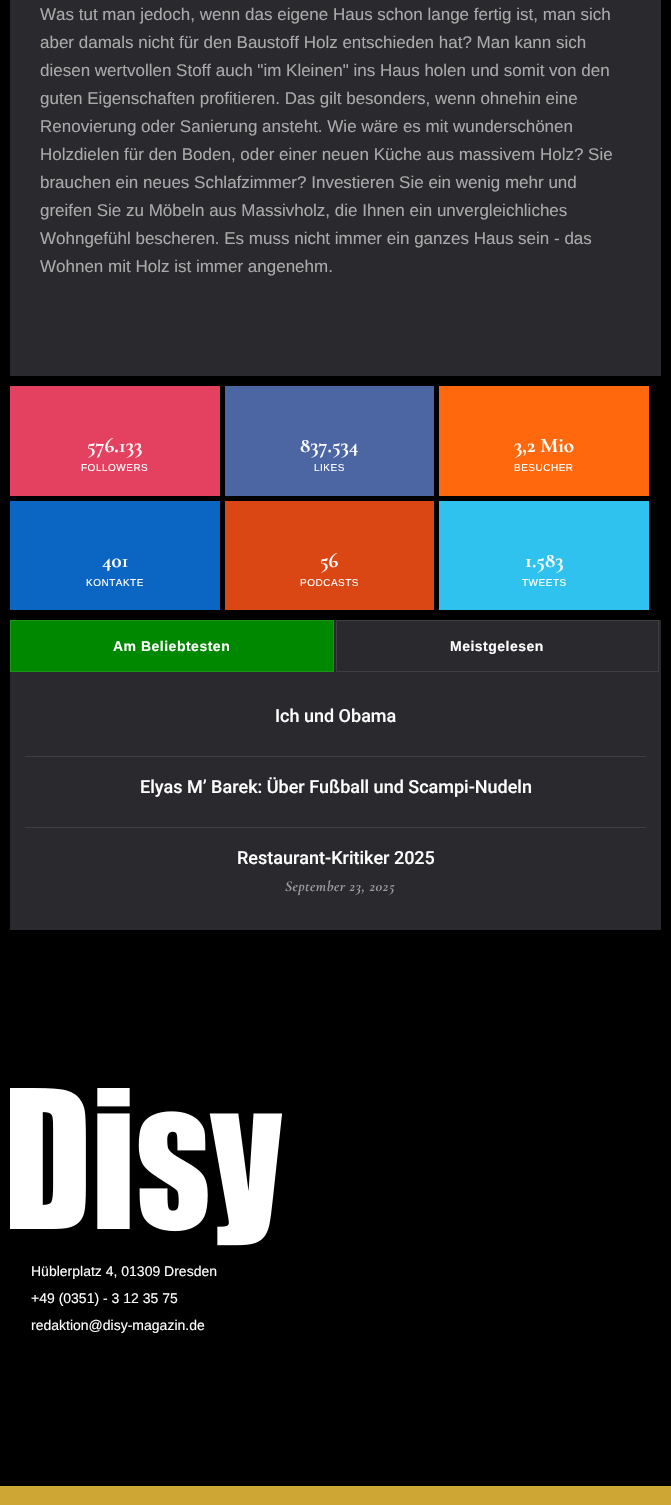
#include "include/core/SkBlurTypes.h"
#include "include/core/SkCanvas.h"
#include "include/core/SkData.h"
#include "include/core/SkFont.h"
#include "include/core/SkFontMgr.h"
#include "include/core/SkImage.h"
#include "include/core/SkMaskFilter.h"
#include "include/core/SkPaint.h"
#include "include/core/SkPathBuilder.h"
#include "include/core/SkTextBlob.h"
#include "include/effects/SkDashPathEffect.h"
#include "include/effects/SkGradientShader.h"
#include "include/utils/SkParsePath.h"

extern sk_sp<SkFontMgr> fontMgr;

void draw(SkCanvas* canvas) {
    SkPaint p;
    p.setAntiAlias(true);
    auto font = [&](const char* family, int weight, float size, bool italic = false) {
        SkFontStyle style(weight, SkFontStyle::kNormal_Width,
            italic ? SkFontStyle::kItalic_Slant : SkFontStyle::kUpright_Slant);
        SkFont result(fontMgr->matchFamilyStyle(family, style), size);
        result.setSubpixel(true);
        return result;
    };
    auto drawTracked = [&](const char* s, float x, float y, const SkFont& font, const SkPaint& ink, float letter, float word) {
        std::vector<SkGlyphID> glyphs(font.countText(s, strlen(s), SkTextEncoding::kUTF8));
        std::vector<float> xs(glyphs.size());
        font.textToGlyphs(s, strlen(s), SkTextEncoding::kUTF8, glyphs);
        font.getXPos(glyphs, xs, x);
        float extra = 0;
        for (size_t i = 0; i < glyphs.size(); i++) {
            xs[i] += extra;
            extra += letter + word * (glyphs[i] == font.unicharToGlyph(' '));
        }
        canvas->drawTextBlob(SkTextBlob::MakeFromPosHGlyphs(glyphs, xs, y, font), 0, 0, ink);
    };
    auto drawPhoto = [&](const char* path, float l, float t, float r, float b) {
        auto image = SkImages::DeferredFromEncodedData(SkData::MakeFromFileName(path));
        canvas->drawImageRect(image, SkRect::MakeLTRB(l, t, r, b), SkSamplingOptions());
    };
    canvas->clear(0xFF000000);
    p.setColor(0xFF2A292D);
    canvas->drawRect(SkRect::MakeLTRB(10, 0, 661, 376), p);
    auto font1 = font("Liberation Sans", 400, 17);
    p.setColor(0xFFAAAAAA);
    {
        const struct { const char* s; float x, y; } items[] = {
            {"Was tut man jedoch, wenn das eigene Haus schon lange fertig ist, man sich", 40, 20},
            {"aber damals nicht für den Baustoff Holz entschieden hat? Man kann sich", 40, 48},
            {"diesen wertvollen Stoff auch \"im Kleinen\" ins Haus holen und somit von den", 40, 76},
            {"guten Eigenschaften profitieren. Das gilt besonders, wenn ohnehin eine", 40, 104},
            {"Renovierung oder Sanierung ansteht. Wie wäre es mit wunderschönen", 40, 132},
            {"Holzdielen für den Boden, oder einer neuen Küche aus massivem Holz? Sie", 40, 160},
            {"brauchen ein neues Schlafzimmer? Investieren Sie ein wenig mehr und", 40, 188},
            {"greifen Sie zu Möbeln aus Massivholz, die Ihnen ein unvergleichliches", 40, 216},
            {"Wohngefühl bescheren. Es muss nicht immer ein ganzes Haus sein - das", 40, 244},
            {"Wohnen mit Holz ist immer angenehm.", 40, 272},
        };
        for (auto [s, x, y] : items) {
            canvas->drawString(s, x, y, font1, p);
        }
    }
    p.setColor(0xFFE4405F);
    canvas->drawRect(SkRect::MakeLTRB(10, 386, 220, 496), p);
    auto font2 = font("Cormorant Garamond", 700, 21);
    p.setColor(0xFFFFFFFF);
    canvas->drawString("576.133", 87, 452, font2, p);
    auto font3 = font("Liberation Sans", 400, 10);
    drawTracked("FOLLOWERS", 81, 471, font3, p, 0.5f, 0);
    p.setColor(0xFF4C66A3);
    canvas->drawRect(SkRect::MakeLTRB(225, 386, 434, 496), p);
    p.setColor(0xFFFFFFFF);
    canvas->drawString("837.534", 300, 452, font2, p);
    drawTracked("LIKES", 314, 471, font3, p, 0.5f, 0);
    p.setColor(0xFFFF680D);
    canvas->drawRect(SkRect::MakeLTRB(439, 386, 649, 496), p);
    p.setColor(0xFFFFFFFF);
    canvas->drawString("3,2 Mio", 514, 452, font2, p);
    drawTracked("BESUCHER", 514, 471, font3, p, 0.5f, 0);
    p.setColor(0xFF0A66C2);
    canvas->drawRect(SkRect::MakeLTRB(10, 501, 220, 610), p);
    p.setColor(0xFFFFFFFF);
    canvas->drawString("401", 102, 567, font2, p);
    drawTracked("KONTAKTE", 86, 586, font3, p, 0.5f, 0);
    p.setColor(0xFFDB4615);
    canvas->drawRect(SkRect::MakeLTRB(225, 501, 434, 610), p);
    p.setColor(0xFFFFFFFF);
    canvas->drawString("56", 320, 567, font2, p);
    drawTracked("PODCASTS", 300, 586, font3, p, 0.5f, 0);
    p.setColor(0xFF2FC2EE);
    canvas->drawRect(SkRect::MakeLTRB(439, 501, 649, 610), p);
    p.setColor(0xFFFFFFFF);
    canvas->drawString("1.583", 525, 567, font2, p);
    drawTracked("TWEETS", 522, 586, font3, p, 0.5f, 0);
    p.setColor(0xFF2A292D);
    canvas->drawRect(SkRect::MakeLTRB(10, 620, 661, 930), p);
    p.setColor(0xFF008900);
    canvas->drawRect(SkRect::MakeLTRB(10.5f, 620.5f, 333.5f, 671.5f), p);
    p.setStyle(SkPaint::kStroke_Style);
    p.setStrokeWidth(1);
    p.setColor(0xFF1A951A);
    canvas->drawRect(SkRect::MakeLTRB(10.5f, 620.5f, 333.5f, 671.5f), p);
    auto font4 = font("Liberation Sans", 700, 14);
    p.setStyle(SkPaint::kFill_Style);
    p.setColor(0xFFFFFFFF);
    drawTracked("Am Beliebtesten", 113, 651, font4, p, 0.5f, 0);
    p.setStyle(SkPaint::kStroke_Style);
    p.setColor(0xFF3F3E42);
    canvas->drawRect(SkRect::MakeLTRB(336.5f, 620.5f, 658.5f, 671.5f), p);
    p.setStyle(SkPaint::kFill_Style);
    p.setColor(0xFFFFFFFF);
    drawTracked("Meistgelesen", 450, 651, font4, p, 0.5f, 0);
    p.setColor(0xFF3F3E42);
    canvas->drawRect(SkRect::MakeLTRB(25, 756, 646, 757), p);
    auto font5 = font("Roboto", 500, 18);
    p.setColor(0xFFFFFFFF);
    canvas->drawString("Ich und Obama", 275, 722, font5, p);
    p.setColor(0xFF3F3E42);
    canvas->drawRect(SkRect::MakeLTRB(25, 827, 646, 828), p);
    p.setColor(0xFFFFFFFF);
    canvas->drawString("Elyas M’ Barek: Über Fußball und Scampi-Nudeln", 140, 793, font5, p);
    canvas->drawString("Restaurant-Kritiker 2025", 237, 864, font5, p);
    auto font6 = font("Cormorant Garamond", 700, 15, true);
    p.setColor(0xFF9A9A9A);
    drawTracked("September 23, 2025", 285, 891, font6, p, 0.5f, 0);
    drawPhoto("media/1.png", 10, 1088, 282, 1246);
    auto font7 = font("Liberation Sans", 400, 14);
    p.setColor(0xFFFFFFFF);
    {
        const struct { const char* s; float x, y; } items[] = {
            {"Hüblerplatz 4, 01309 Dresden", 31, 1276},
            {"+49 (0351) - 3 12 35 75", 31, 1303},
            {"redaktion@disy-magazin.de", 31, 1330},
        };
        for (auto [s, x, y] : items) {
            canvas->drawString(s, x, y, font7, p);
        }
    }
    p.setColor(0xFFCDA633);
    canvas->drawRect(SkRect::MakeLTRB(0, 1486, 671, 1505), p);
}
